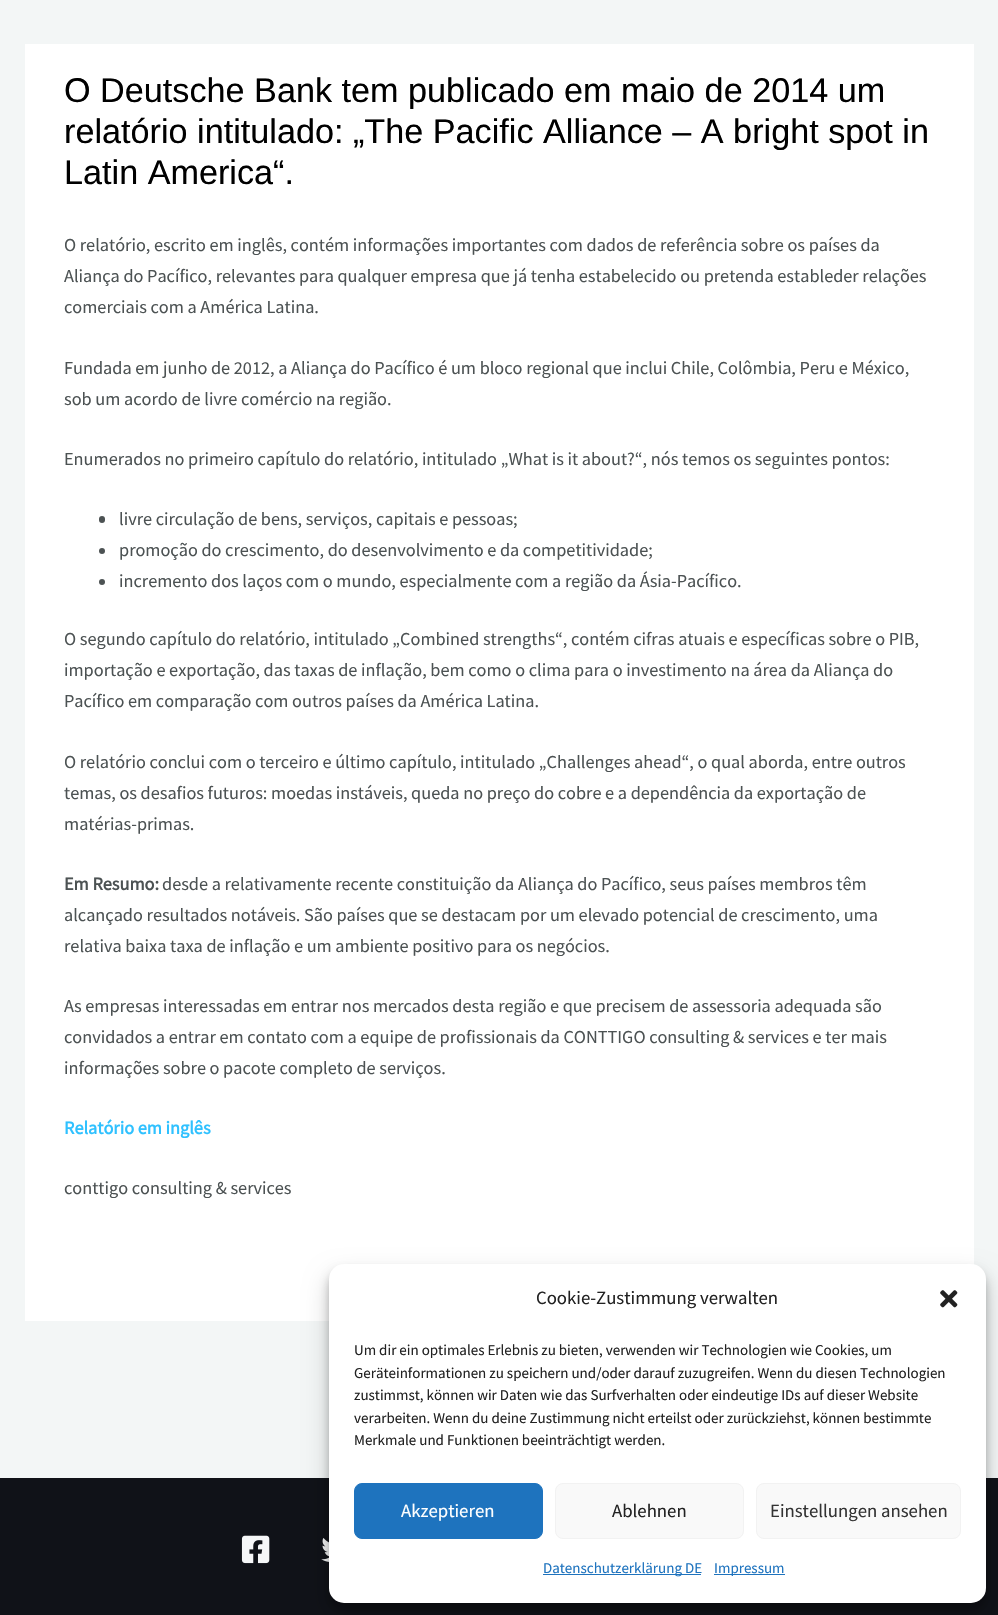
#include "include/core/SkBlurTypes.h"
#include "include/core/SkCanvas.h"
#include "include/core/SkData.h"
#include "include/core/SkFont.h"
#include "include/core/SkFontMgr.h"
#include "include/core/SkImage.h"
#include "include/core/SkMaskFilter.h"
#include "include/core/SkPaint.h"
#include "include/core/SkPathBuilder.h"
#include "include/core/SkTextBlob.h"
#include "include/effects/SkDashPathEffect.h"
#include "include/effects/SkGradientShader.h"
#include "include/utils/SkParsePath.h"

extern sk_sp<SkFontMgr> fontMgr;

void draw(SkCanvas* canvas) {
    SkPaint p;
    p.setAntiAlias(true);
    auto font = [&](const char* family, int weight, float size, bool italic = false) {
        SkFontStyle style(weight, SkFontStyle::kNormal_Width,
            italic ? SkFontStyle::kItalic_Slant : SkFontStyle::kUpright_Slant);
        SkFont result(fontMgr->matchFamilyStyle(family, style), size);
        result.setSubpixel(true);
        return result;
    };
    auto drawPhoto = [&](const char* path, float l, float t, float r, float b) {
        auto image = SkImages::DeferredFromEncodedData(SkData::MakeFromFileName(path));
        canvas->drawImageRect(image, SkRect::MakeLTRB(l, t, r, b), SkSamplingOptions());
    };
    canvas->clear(0xFFF3F6F6);
    p.setColor(0xFFFFFFFF);
    canvas->drawRect(SkRect::MakeLTRB(25, 44, 974, 1321), p);
    auto font1 = font("Liberation Sans", 400, 34.2f);
    p.setColor(0xFF000000);
    {
        const struct { const char* s; float x, y; } items[] = {
            {"O Deutsche Bank tem publicado em maio de 2014 um", 64, 102},
            {"relatório intitulado: „The Pacific Alliance – A bright spot in", 64, 143},
            {"Latin America“.", 64, 184},
        };
        for (auto [s, x, y] : items) {
            canvas->drawString(s, x, y, font1, p);
        }
    }
    auto font2 = font("Source Sans Pro", 400, 18.25f);
    p.setColor(0xFF4C5253);
    {
        const struct { const char* s; float x, y; } items[] = {
            {"O relatório, escrito em inglês, contém informações importantes com dados de referência sobre os países da", 64, 251},
            {"Aliança do Pacífico, relevantes para qualquer empresa que já tenha estabelecido ou pretenda estableder relações", 64, 282},
            {"comerciais com a América Latina.", 64, 313},
            {"Fundada em junho de 2012, a Aliança do Pacífico é um bloco regional que inclui Chile, Colômbia, Peru e México,", 64, 374},
            {"sob um acordo de livre comércio na região.", 64, 405},
            {"Enumerados no primeiro capítulo do relatório, intitulado „What is it about?“, nós temos os seguintes pontos:", 64, 465},
        };
        for (auto [s, x, y] : items) {
            canvas->drawString(s, x, y, font2, p);
        }
    }
    canvas->drawRoundRect(SkRect::MakeLTRB(99, 516, 105, 523), 3, 3, p);
    canvas->drawString("livre circulação de bens, serviços, capitais e pessoas;", 119, 525, font2, p);
    canvas->drawCircle(102, 551, 3, p);
    canvas->drawString("promoção do crescimento, do desenvolvimento e da competitividade;", 119, 556, font2, p);
    canvas->drawCircle(102, 582, 3, p);
    {
        const struct { const char* s; float x, y; } items[] = {
            {"incremento dos laços com o mundo, especialmente com a região da Ásia-Pacífico.", 119, 587},
            {"O segundo capítulo do relatório, intitulado „Combined strengths“, contém cifras atuais e específicas sobre o PIB,", 64, 645},
            {"importação e exportação, das taxas de inflação, bem como o clima para o investimento na área da Aliança do", 64, 676},
            {"Pacífico em comparação com outros países da América Latina.", 64, 707},
            {"O relatório conclui com o terceiro e último capítulo, intitulado „Challenges ahead“, o qual aborda, entre outros", 64, 768},
            {"temas, os desafios futuros: moedas instáveis, queda no preço do cobre e a dependência da exportação de", 64, 799},
            {"matérias-primas.", 64, 830},
        };
        for (auto [s, x, y] : items) {
            canvas->drawString(s, x, y, font2, p);
        }
    }
    auto font3 = font("Source Sans Pro", 700, 18.25f);
    canvas->drawString("Em Resumo:", 64, 890, font3, p);
    {
        const struct { const char* s; float x, y; } items[] = {
            {"desde a relativamente recente constituição da Aliança do Pacífico, seus países membros têm", 162, 890},
            {"alcançado resultados notáveis. São países que se destacam por um elevado potencial de crescimento, uma", 64, 921},
            {"relativa baixa taxa de inflação e um ambiente positivo para os negócios.", 64, 952},
            {"As empresas interessadas em entrar nos mercados desta região e que precisem de assessoria adequada são", 64, 1012},
            {"convidados a entrar em contato com a equipe de profissionais da CONTTIGO consulting & services e ter mais", 64, 1043},
            {"informações sobre o pacote completo de serviços.", 64, 1074},
        };
        for (auto [s, x, y] : items) {
            canvas->drawString(s, x, y, font2, p);
        }
    }
    p.setColor(0xFF2FC1FF);
    canvas->drawString("Relatório em inglês", 64, 1134, font3, p);
    p.setColor(0xFF4C5253);
    canvas->drawString("conttigo consulting & services", 64, 1194, font2, p);
    p.setColor(0xFF101218);
    canvas->drawRect(SkRect::MakeLTRB(0, 1478, 998, 1615), p);
    drawPhoto("media/1.png", 241, 1535, 270, 1564);
    drawPhoto("media/2.png", 321, 1538, 329, 1562);
    p.setColor(0x3B000000);
    p.setMaskFilter(SkMaskFilter::MakeBlur(kNormal_SkBlurStyle, 4));
    canvas->drawRoundRect(SkRect::MakeLTRB(329, 1271, 986, 1610), 15, 15, p);
    p.setMaskFilter(nullptr);
    p.setColor(0x30000000);
    p.setMaskFilter(SkMaskFilter::MakeBlur(kNormal_SkBlurStyle, 12.5f));
    canvas->drawRoundRect(SkRect::MakeLTRB(329, 1276, 986, 1615), 15, 15, p);
    p.setMaskFilter(nullptr);
    p.setColor(0xFFFFFFFF);
    canvas->drawRoundRect(SkRect::MakeLTRB(329, 1264, 986, 1603), 15, 15, p);
    auto font4 = font("Source Sans Pro", 400, 18.75f);
    p.setColor(0xFF222222);
    canvas->drawString("Cookie-Zustimmung verwalten", 536, 1304, font4, p);
    drawPhoto("media/3.png", 940, 1290, 958, 1308);
    auto font5 = font("Source Sans Pro", 400, 15);
    {
        const struct { const char* s; float x, y; } items[] = {
            {"Um dir ein optimales Erlebnis zu bieten, verwenden wir Technologien wie Cookies, um", 354, 1355},
            {"Geräteinformationen zu speichern und/oder darauf zuzugreifen. Wenn du diesen Technologien", 354, 1378},
            {"zustimmst, können wir Daten wie das Surfverhalten oder eindeutige IDs auf dieser Website", 354, 1400},
            {"verarbeiten. Wenn du deine Zustimmung nicht erteilst oder zurückziehst, können bestimmte", 354, 1423},
            {"Merkmale und Funktionen beeinträchtigt werden.", 354, 1445},
        };
        for (auto [s, x, y] : items) {
            canvas->drawString(s, x, y, font5, p);
        }
    }
    p.setColor(0xFF1E73BE);
    canvas->drawRoundRect(SkRect::MakeLTRB(354.5f, 1483.5f, 542.5f, 1538.5f), 7.5f, 7.5f, p);
    p.setStyle(SkPaint::kStroke_Style);
    p.setStrokeWidth(1);
    canvas->drawRoundRect(SkRect::MakeLTRB(354.5f, 1483.5f, 542.5f, 1538.5f), 7.5f, 7.5f, p);
    p.setStyle(SkPaint::kFill_Style);
    p.setColor(0xFFFFFFFF);
    canvas->drawString("Akzeptieren", 401, 1517, font4, p);
    p.setColor(0xFFF9F9F9);
    canvas->drawRoundRect(SkRect::MakeLTRB(555.5f, 1483.5f, 743.5f, 1538.5f), 7.5f, 7.5f, p);
    p.setStyle(SkPaint::kStroke_Style);
    p.setColor(0xFFF2F2F2);
    canvas->drawRoundRect(SkRect::MakeLTRB(555.5f, 1483.5f, 743.5f, 1538.5f), 7.5f, 7.5f, p);
    p.setStyle(SkPaint::kFill_Style);
    p.setColor(0xFF222222);
    canvas->drawString("Ablehnen", 612, 1517, font4, p);
    p.setColor(0xFFF9F9F9);
    canvas->drawRoundRect(SkRect::MakeLTRB(756.5f, 1483.5f, 960.5f, 1538.5f), 7.5f, 7.5f, p);
    p.setStyle(SkPaint::kStroke_Style);
    p.setColor(0xFFF2F2F2);
    canvas->drawRoundRect(SkRect::MakeLTRB(756.5f, 1483.5f, 960.5f, 1538.5f), 7.5f, 7.5f, p);
    p.setStyle(SkPaint::kFill_Style);
    p.setColor(0xFF333333);
    canvas->drawString("Einstellungen ansehen", 770, 1517, font4, p);
    p.setColor(0xFF1E73BE);
    canvas->drawRect(SkRect::MakeLTRB(543, 1574, 701, 1575), p);
    canvas->drawString("Datenschutzerklärung DE", 543, 1573, font5, p);
    canvas->drawRect(SkRect::MakeLTRB(714, 1574, 785, 1575), p);
    canvas->drawString("Impressum", 714, 1573, font5, p);
}
